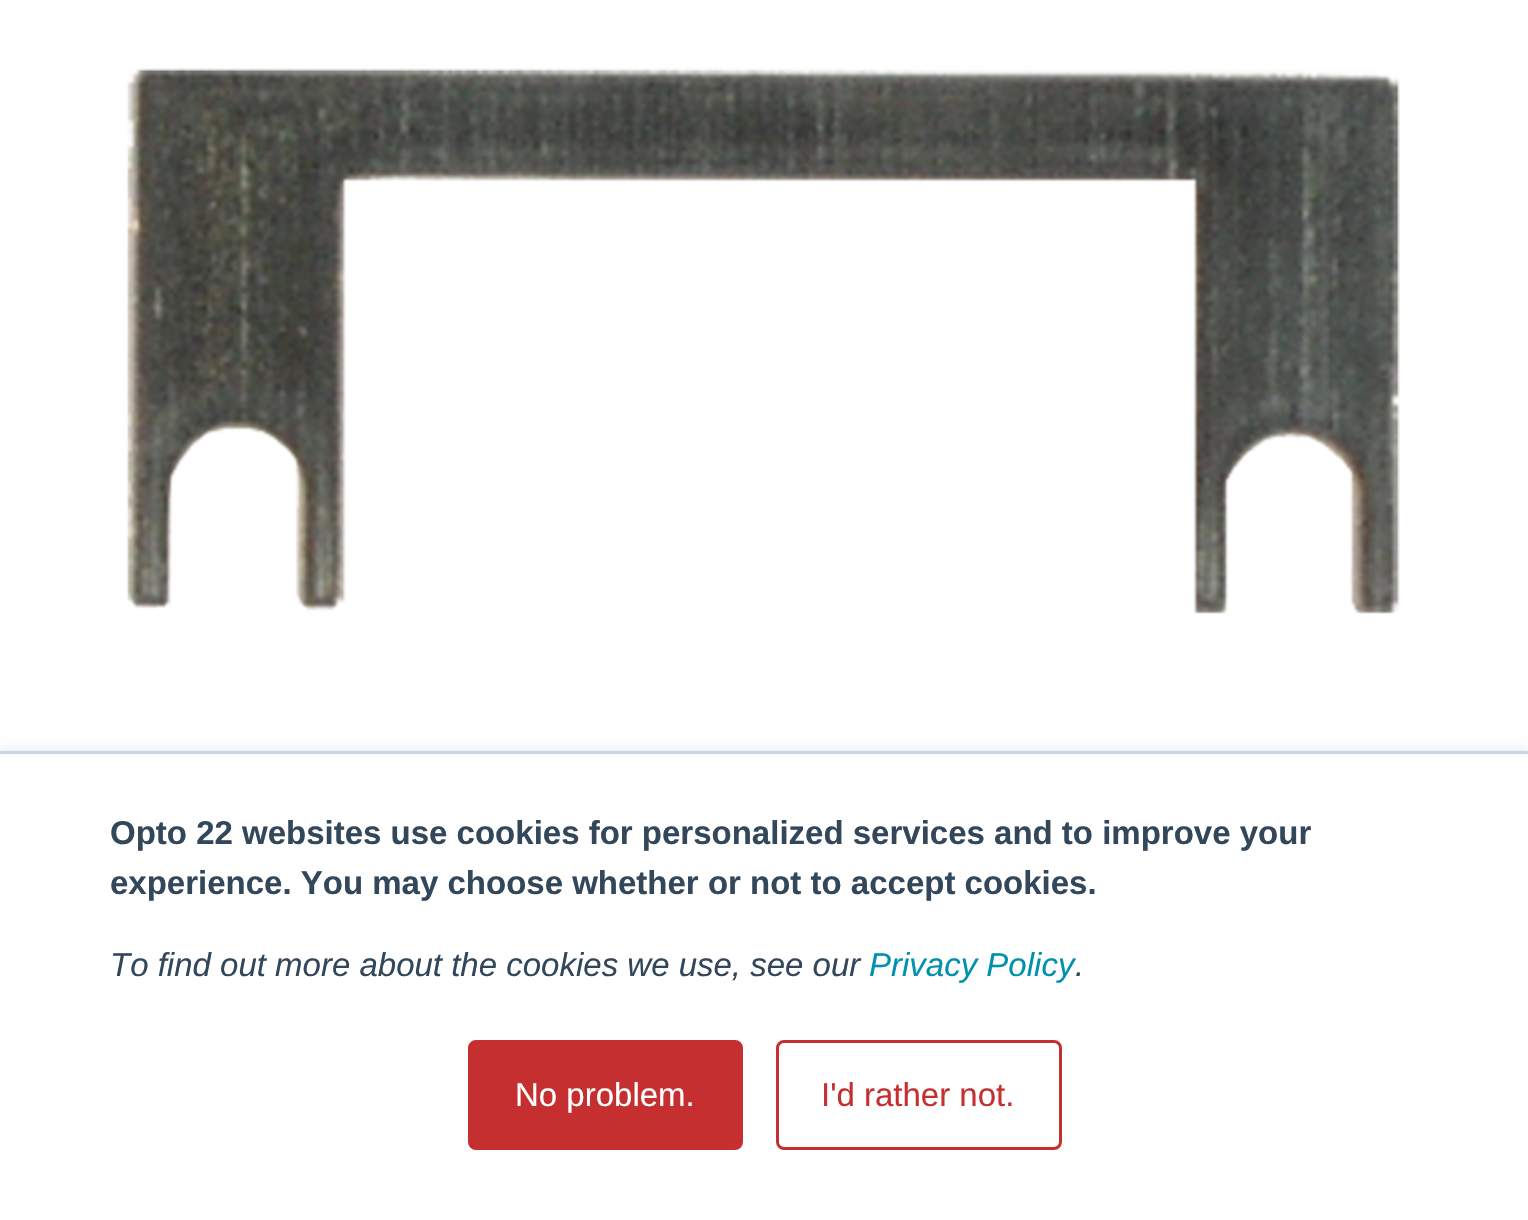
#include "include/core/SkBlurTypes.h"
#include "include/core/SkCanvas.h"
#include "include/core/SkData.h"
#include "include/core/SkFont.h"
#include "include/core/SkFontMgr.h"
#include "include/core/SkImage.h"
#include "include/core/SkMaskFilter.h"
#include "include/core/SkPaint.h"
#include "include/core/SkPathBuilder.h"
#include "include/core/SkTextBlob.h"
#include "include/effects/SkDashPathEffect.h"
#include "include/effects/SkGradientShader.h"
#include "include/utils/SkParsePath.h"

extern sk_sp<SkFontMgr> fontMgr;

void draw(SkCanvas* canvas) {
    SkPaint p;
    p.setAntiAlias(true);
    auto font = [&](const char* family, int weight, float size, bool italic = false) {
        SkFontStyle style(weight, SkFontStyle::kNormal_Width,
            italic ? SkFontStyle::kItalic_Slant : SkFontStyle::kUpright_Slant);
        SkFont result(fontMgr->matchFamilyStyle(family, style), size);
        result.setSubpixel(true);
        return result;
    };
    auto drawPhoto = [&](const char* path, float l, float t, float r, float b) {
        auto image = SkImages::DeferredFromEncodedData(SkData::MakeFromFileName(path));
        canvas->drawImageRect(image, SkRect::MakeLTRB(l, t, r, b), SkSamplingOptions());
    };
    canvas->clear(0xFFFFFFFF);
    drawPhoto("media/1.png", 126, 68, 1400, 614);
    p.setColor(0xFFEAF0F6);
    p.setMaskFilter(SkMaskFilter::MakeBlur(kNormal_SkBlurStyle, 4));
    canvas->drawRect(SkRect::MakeLTRB(0, 748, 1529, 1218), p);
    p.setMaskFilter(nullptr);
    p.setColor(0xFFFFFFFF);
    canvas->drawRect(SkRect::MakeLTRB(0, 754, 1528, 1220), p);
    p.setColor(0xFFCBD6E2);
    canvas->drawRect(SkRect::MakeLTRB(0, 751, 1528, 754), p);
    auto font1 = font("Liberation Sans", 700, 33);
    p.setColor(0xFF33475B);
    canvas->drawString("Opto 22 websites use cookies for personalized services and to improve your", 110, 844, font1, p);
    canvas->drawString("experience. You may choose whether or not to accept cookies.", 110, 894, font1, p);
    auto font2 = font("Liberation Sans", 400, 33, true);
    canvas->drawString("To find out more about the cookies we use, see our", 110, 976, font2, p);
    p.setColor(0xFF0091AE);
    canvas->drawString("Privacy Policy", 869, 976, font2, p);
    p.setColor(0xFF33475B);
    canvas->drawString(".", 1075, 976, font2, p);
    p.setColor(0xFFC52F2F);
    canvas->drawRoundRect(SkRect::MakeLTRB(469.5f, 1041.5f, 741.5f, 1148.5f), 6.5f, 6.5f, p);
    p.setStyle(SkPaint::kStroke_Style);
    p.setStrokeWidth(3);
    canvas->drawRoundRect(SkRect::MakeLTRB(469.5f, 1041.5f, 741.5f, 1148.5f), 6.5f, 6.5f, p);
    auto font3 = font("Liberation Sans", 400, 33);
    p.setStyle(SkPaint::kFill_Style);
    p.setColor(0xFFFFFFFF);
    canvas->drawString("No problem.", 515, 1106, font3, p);
    p.setStyle(SkPaint::kStroke_Style);
    p.setColor(0xFFC52F2F);
    canvas->drawRoundRect(SkRect::MakeLTRB(777.5f, 1041.5f, 1060.5f, 1148.5f), 6.5f, 6.5f, p);
    p.setStyle(SkPaint::kFill_Style);
    canvas->drawString("I'd rather not.", 821, 1106, font3, p);
}
